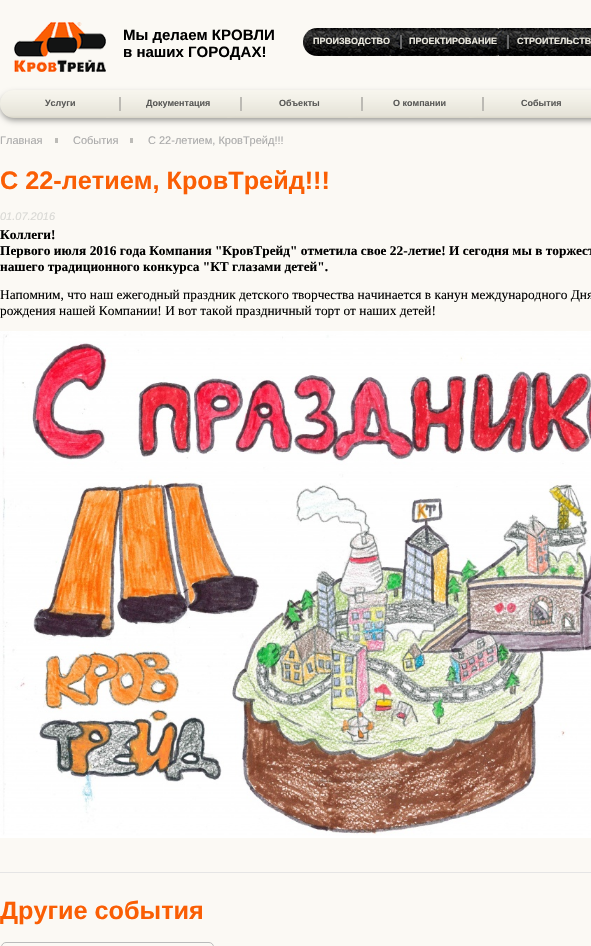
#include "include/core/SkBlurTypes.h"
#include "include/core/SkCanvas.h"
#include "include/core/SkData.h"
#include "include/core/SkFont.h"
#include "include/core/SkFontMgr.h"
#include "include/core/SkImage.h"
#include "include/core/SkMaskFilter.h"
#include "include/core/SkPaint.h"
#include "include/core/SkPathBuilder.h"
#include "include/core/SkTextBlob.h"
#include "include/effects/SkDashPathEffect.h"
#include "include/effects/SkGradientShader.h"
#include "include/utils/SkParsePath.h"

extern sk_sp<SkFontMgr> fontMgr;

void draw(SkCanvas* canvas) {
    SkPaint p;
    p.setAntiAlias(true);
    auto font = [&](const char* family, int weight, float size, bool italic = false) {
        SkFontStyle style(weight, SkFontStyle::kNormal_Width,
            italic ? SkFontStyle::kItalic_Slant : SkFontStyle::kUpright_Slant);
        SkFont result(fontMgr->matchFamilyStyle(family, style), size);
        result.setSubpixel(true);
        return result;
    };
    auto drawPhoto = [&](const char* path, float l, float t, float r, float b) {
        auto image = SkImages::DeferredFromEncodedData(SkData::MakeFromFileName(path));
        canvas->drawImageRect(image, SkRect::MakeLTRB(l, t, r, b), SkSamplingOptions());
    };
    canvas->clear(0xFFFBF9F4);
    drawPhoto("media/1.png", 14, 22, 106, 72);
    auto font1 = font("Liberation Sans", 700, 15);
    p.setColor(0xFF000000);
    canvas->drawString("Мы делаем КРОВЛИ", 123, 40, font1, p);
    canvas->drawString("в наших ГОРОДАХ!", 123, 57, font1, p);
    drawPhoto("media/4.png", 499, 28, 591, 56);
    drawPhoto("media/3.png", 391, 28, 507, 56);
    drawPhoto("media/2.png", 303, 28, 400, 56);
    p.setColor(0xFF6A6A6B);
    canvas->drawRect(SkRect::MakeLTRB(400, 35, 402, 49), p);
    auto font2 = font("Liberation Sans", 700, 9);
    p.setColor(0xFFEBE9DF);
    canvas->drawString("ПРОИЗВОДСТВО", 313, 44, font2, p);
    p.setColor(0xFF6A6A6B);
    canvas->drawRect(SkRect::MakeLTRB(507, 35, 509, 49), p);
    p.setColor(0xFFEBE9DF);
    canvas->drawString("ПРОЕКТИРОВАНИЕ", 409, 44, font2, p);
    canvas->drawString("СТРОИТЕЛЬСТВ", 517, 44, font2, p);
    p.setColor(0xFF90908D);
    p.setMaskFilter(SkMaskFilter::MakeBlur(kNormal_SkBlurStyle, 3));
    canvas->drawRoundRect(SkRect::MakeLTRB(1, 94, 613, 120), 13, 13, p);
    p.setMaskFilter(nullptr);
    drawPhoto("media/8.png", 590, 90, 591, 118);
    drawPhoto("media/7.png", 469, 90, 591, 118);
    drawPhoto("media/6.png", 348, 90, 482, 118);
    drawPhoto("media/6.png", 227, 90, 361, 118);
    drawPhoto("media/6.png", 106, 90, 240, 118);
    drawPhoto("media/5.png", 0, 90, 119, 118);
    p.setColor(0xFFBCBAB4);
    canvas->drawRect(SkRect::MakeLTRB(119, 97, 121, 111), p);
    p.setColor(0xFF595957);
    canvas->drawString("Услуги", 45, 106, font2, p);
    p.setColor(0xFFBCBAB4);
    canvas->drawRect(SkRect::MakeLTRB(240, 97, 242, 111), p);
    p.setColor(0xFF595957);
    canvas->drawString("Документация", 146, 106, font2, p);
    p.setColor(0xFFBCBAB4);
    canvas->drawRect(SkRect::MakeLTRB(361, 97, 363, 111), p);
    p.setColor(0xFF595957);
    canvas->drawString("Объекты", 279, 106, font2, p);
    p.setColor(0xFFBCBAB4);
    canvas->drawRect(SkRect::MakeLTRB(482, 97, 484, 111), p);
    p.setColor(0xFF595957);
    canvas->drawString("О компании", 393, 106, font2, p);
    canvas->drawString("События", 521, 106, font2, p);
    p.setColor(0xFFBCBBB7);
    canvas->drawRect(SkRect::MakeLTRB(55, 138, 58, 143), p);
    auto font3 = font("Liberation Sans", 400, 11);
    p.setColor(0xFFAAAAAA);
    canvas->drawString("Главная", 0, 144, font3, p);
    p.setColor(0xFFBCBBB7);
    canvas->drawRect(SkRect::MakeLTRB(130, 138, 133, 143), p);
    p.setColor(0xFFAAAAAA);
    canvas->drawString("События", 73, 144, font3, p);
    canvas->drawString("С 22-летием, КровТрейд!!!", 148, 144, font3, p);
    auto font4 = font("Liberation Sans", 700, 25.25f);
    p.setColor(0xFFFA5E04);
    canvas->drawString("С 22-летием, КровТрейд!!!", 0, 189, font4, p);
    auto font5 = font("Liberation Sans", 400, 11, true);
    p.setColor(0xFFD9D9D5);
    canvas->drawString("01.07.2016", 0, 220, font5, p);
    auto font6 = font("Liberation Serif", 700, 13.35f);
    p.setColor(0xFF000000);
    {
        const struct { const char* s; float x, y; } items[] = {
            {"Коллеги!", 0, 239},
            {"Первого июля 2016 года Компания \"КровТрейд\" отметила свое 22-летие! И сегодня мы в торжест", 0, 255},
            {"нашего традиционного конкурса \"КТ глазами детей\".", 0, 271},
        };
        for (auto [s, x, y] : items) {
            canvas->drawString(s, x, y, font6, p);
        }
    }
    auto font7 = font("Liberation Serif", 400, 13.35f);
    canvas->drawString("Напомним, что наш ежегодный праздник детского творчества начинается в канун международного Дня", 0, 299, font7, p);
    canvas->drawString("рождения нашей Компании! И вот такой праздничный торт от наших детей!", 0, 315, font7, p);
    drawPhoto("media/9.png", 0, 331, 591, 838);
    p.setColor(0xFFE5E5E5);
    canvas->drawRect(SkRect::MakeLTRB(0, 872, 591, 873), p);
    p.setColor(0xFFFA5E04);
    canvas->drawString("Другие события", 0, 919, font4, p);
    p.setStyle(SkPaint::kStroke_Style);
    p.setStrokeWidth(1);
    p.setColor(0xFFBBBBBB);
    canvas->drawRoundRect(SkRect::MakeLTRB(1.5f, 942.5f, 213.5f, 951.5f), 4.5f, 4.5f, p);
}
